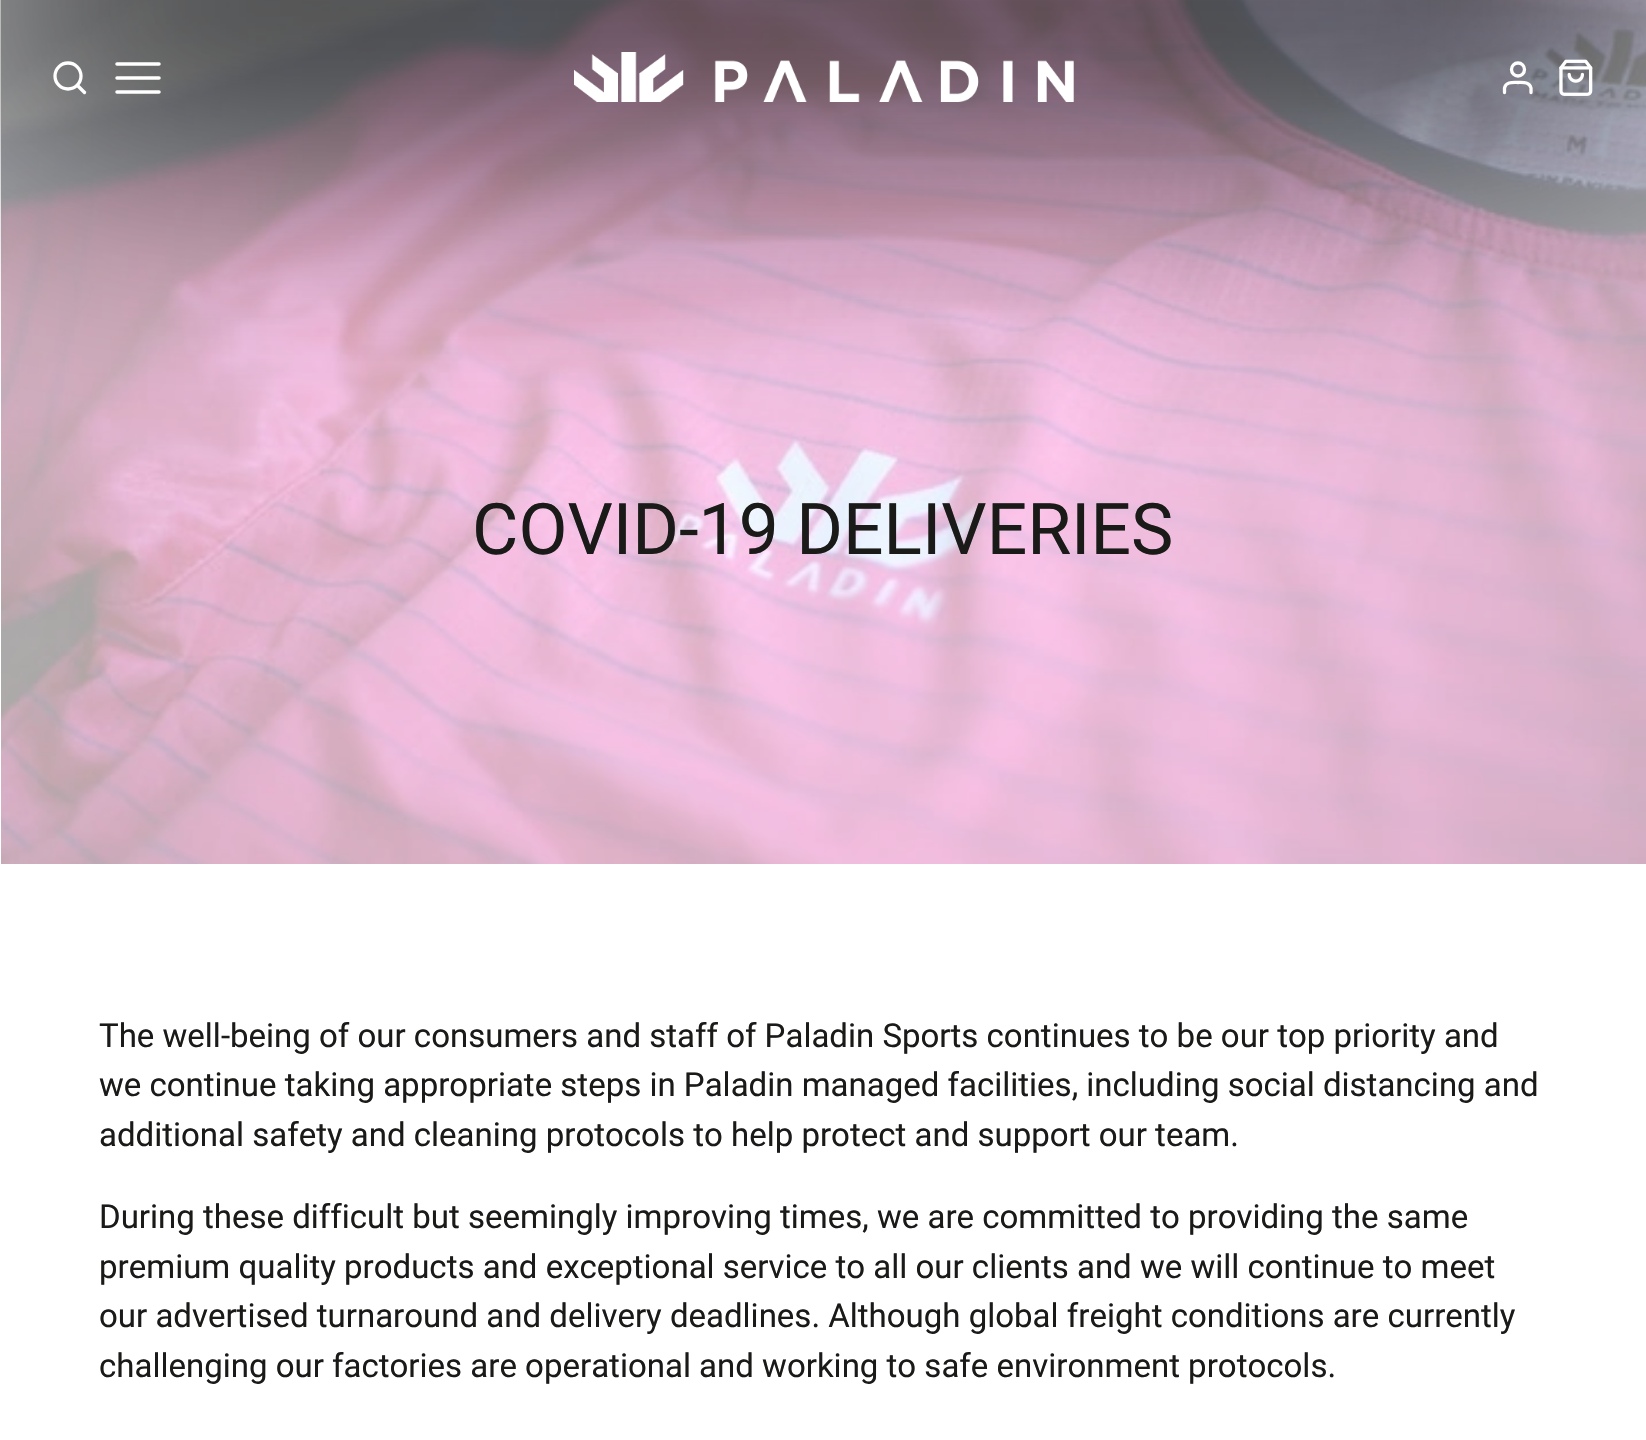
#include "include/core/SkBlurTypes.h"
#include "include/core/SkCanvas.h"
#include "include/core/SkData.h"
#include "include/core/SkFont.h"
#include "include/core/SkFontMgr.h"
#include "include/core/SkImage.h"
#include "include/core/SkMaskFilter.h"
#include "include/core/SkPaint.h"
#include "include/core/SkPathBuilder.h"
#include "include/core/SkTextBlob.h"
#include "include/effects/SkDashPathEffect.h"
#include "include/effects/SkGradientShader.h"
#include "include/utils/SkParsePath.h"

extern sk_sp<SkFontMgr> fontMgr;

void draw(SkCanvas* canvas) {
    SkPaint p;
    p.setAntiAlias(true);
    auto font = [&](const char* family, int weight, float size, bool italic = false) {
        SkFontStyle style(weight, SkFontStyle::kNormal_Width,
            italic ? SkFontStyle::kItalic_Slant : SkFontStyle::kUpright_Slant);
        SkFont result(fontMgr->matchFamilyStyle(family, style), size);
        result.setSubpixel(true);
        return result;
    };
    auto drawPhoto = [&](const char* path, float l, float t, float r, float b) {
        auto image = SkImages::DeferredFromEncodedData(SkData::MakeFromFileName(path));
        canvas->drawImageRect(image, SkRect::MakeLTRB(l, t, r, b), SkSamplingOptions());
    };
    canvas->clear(0xFFFFFFFF);
    drawPhoto("media/3.png", 1, 0, 1646, 864);
    p.setColor(0xBF000000);
    p.setMaskFilter(SkMaskFilter::MakeBlur(kNormal_SkBlurStyle, 150));
    canvas->drawRect(SkRect::MakeLTRB(0, -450, 1646, 140), p);
    p.setMaskFilter(nullptr);
    p.setStyle(SkPaint::kStroke_Style);
    p.setStrokeWidth(3.3f);
    p.setColor(0xFFFFFFFF);
    canvas->drawCircle(68, 76, 13, p);
    p.setStrokeCap(SkPaint::kRound_Cap);
    p.setStrokeJoin(SkPaint::kRound_Join);
    canvas->drawPath(SkPathBuilder().moveTo(84.5f, 92.5f).lineTo(77.5f, 85.5f).detach(), p);
    p.setStrokeWidth(3.5f);
    canvas->drawPath(SkPathBuilder().moveTo(117, 78).lineTo(159, 78).moveTo(117, 64).lineTo(159, 64).moveTo(117, 92).lineTo(159, 92).detach(), p);
    drawPhoto("media/1.png", 574, 52, 1074, 102);
    p.setStrokeWidth(3.3f);
    p.setStrokeCap(SkPaint::kButt_Cap);
    p.setStrokeJoin(SkPaint::kMiter_Join);
    canvas->drawCircle(1518, 69.5f, 6.5f, p);
    p.setStrokeCap(SkPaint::kRound_Cap);
    p.setStrokeJoin(SkPaint::kRound_Join);
    canvas->drawPath(SkPathBuilder().moveTo(1531, 92.5f).lineTo(1531, 88).cubicTo(1529.5f, 81.5f, 1522.5f, 82.5f, 1518, 82.5f).cubicTo(1513, 82.5f, 1506, 81.5f, 1504.5f, 88).lineTo(1504.5f, 92.5f).detach(), p);
    drawPhoto("media/2.png", 1559, 59, 1593, 96);
    auto font1 = font("Roboto", 400, 71.25f);
    p.setStyle(SkPaint::kFill_Style);
    p.setColor(0xFF1A1B18);
    canvas->drawString("COVID-19 DELIVERIES", 472, 554, font1, p);
    auto font2 = font("Roboto", 400, 33);
    {
        const struct { const char* s; float x, y; } items[] = {
            {"The well-being of our consumers and staff of Paladin Sports continues to be our top priority and", 99, 1047},
            {"we continue taking appropriate steps in Paladin managed facilities, including social distancing and", 99, 1096},
            {"additional safety and cleaning protocols to help protect and support our team.", 99, 1146},
            {"During these difficult but seemingly improving times, we are committed to providing the same", 99, 1228},
            {"premium quality products and exceptional service to all our clients and we will continue to meet", 99, 1278},
            {"our advertised turnaround and delivery deadlines. Although global freight conditions are currently", 99, 1327},
            {"challenging our factories are operational and working to safe environment protocols.", 99, 1377},
        };
        for (auto [s, x, y] : items) {
            canvas->drawString(s, x, y, font2, p);
        }
    }
}
